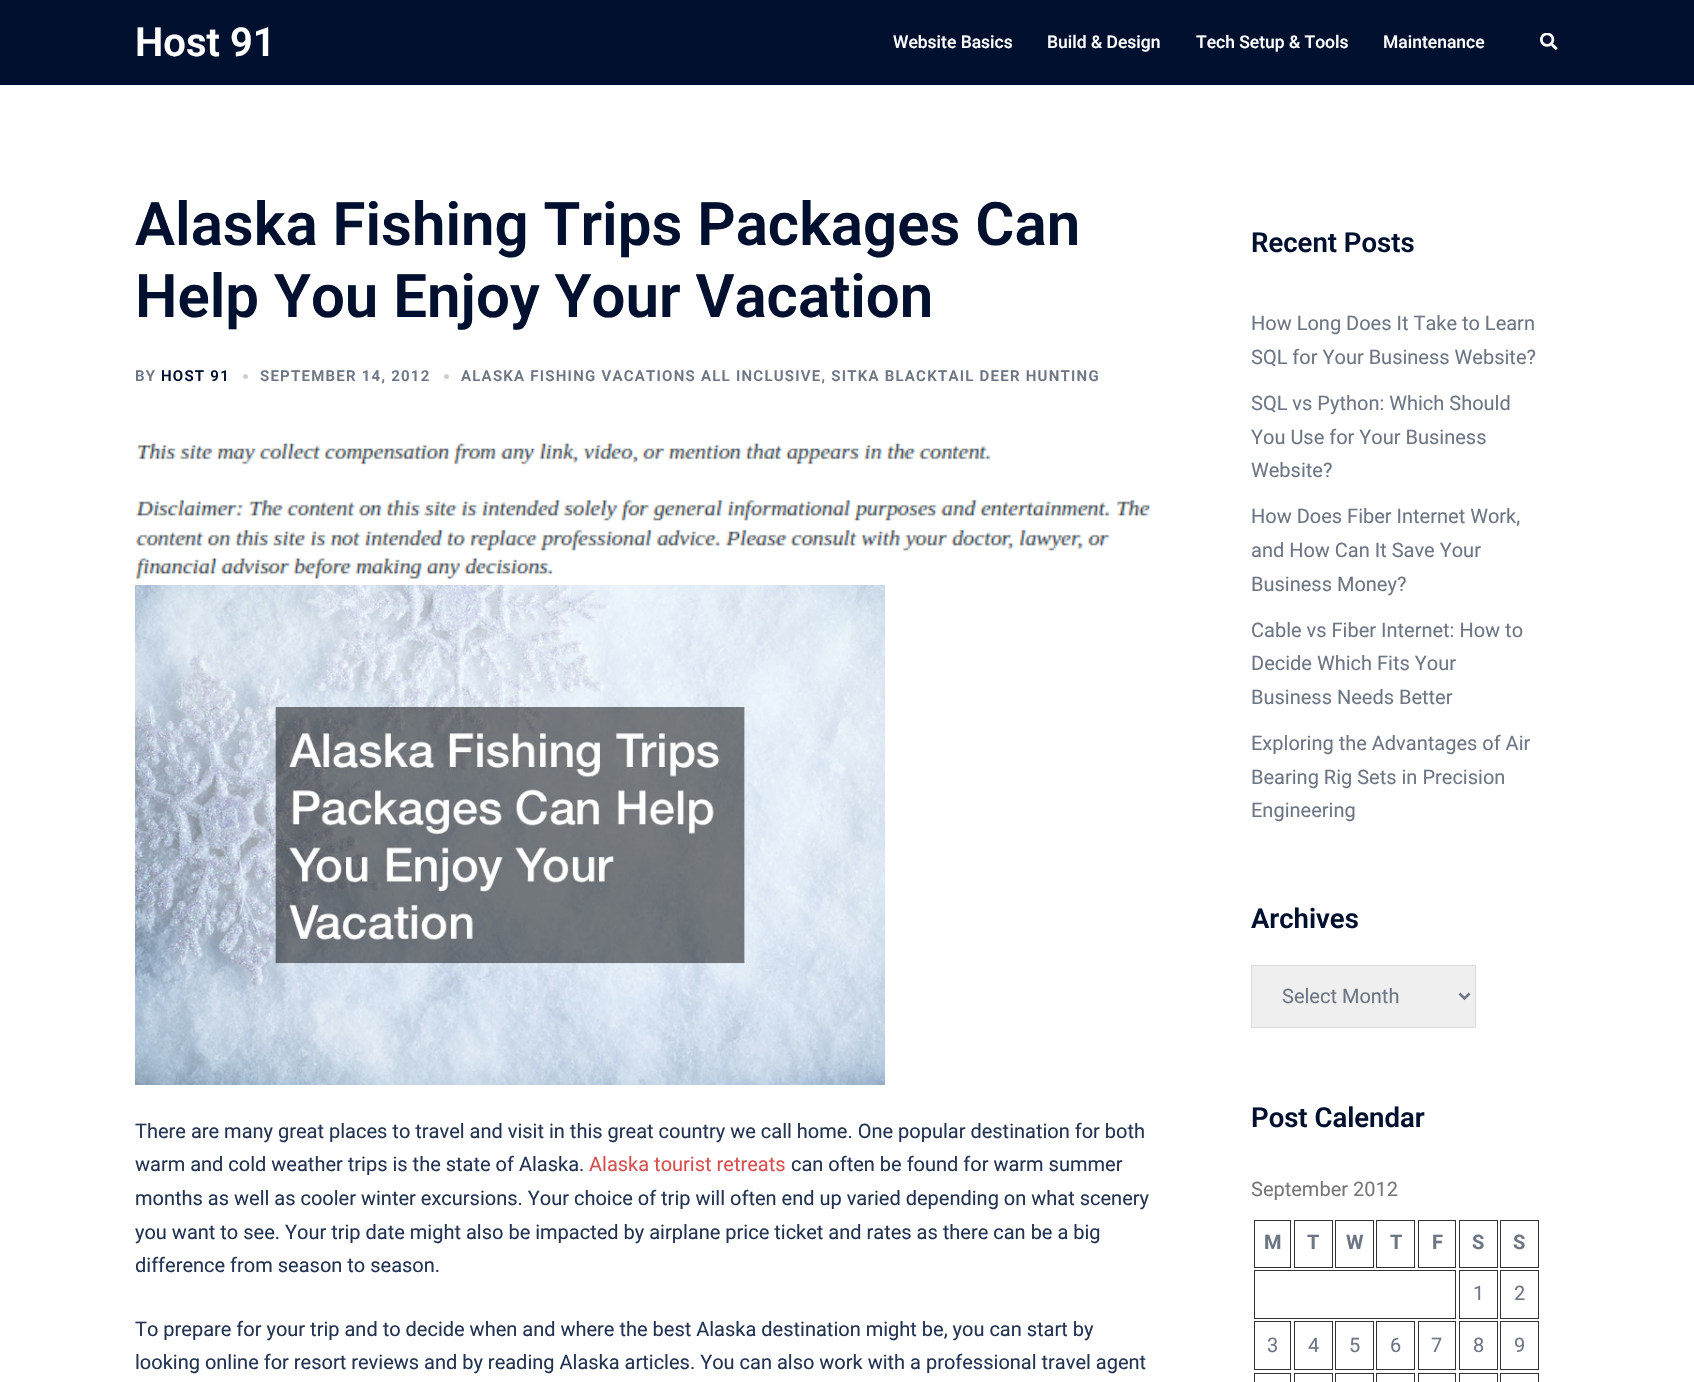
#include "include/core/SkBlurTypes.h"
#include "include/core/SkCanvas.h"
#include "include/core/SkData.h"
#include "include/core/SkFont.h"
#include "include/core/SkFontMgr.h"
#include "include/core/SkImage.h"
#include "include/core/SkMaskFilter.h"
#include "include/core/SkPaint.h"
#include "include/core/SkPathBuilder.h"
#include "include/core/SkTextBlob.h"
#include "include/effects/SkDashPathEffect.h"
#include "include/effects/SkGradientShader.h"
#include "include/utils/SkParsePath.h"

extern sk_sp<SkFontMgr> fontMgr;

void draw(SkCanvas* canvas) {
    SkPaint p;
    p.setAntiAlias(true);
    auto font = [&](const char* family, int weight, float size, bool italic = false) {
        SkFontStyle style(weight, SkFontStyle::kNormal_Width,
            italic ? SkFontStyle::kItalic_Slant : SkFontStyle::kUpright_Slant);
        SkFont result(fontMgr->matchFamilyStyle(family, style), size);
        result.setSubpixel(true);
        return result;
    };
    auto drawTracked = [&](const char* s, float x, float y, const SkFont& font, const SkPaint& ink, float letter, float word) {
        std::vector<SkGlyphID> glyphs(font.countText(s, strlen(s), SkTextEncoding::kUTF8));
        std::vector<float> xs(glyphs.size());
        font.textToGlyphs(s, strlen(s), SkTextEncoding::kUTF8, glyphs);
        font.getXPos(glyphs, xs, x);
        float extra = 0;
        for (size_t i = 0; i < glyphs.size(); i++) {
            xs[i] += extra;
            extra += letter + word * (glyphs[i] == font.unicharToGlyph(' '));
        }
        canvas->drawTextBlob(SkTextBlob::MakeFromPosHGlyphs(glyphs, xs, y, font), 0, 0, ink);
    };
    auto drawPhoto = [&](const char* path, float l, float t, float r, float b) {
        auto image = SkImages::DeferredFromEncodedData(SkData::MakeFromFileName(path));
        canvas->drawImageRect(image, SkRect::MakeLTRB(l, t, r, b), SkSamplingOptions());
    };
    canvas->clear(0xFFFFFFFF);
    p.setColor(0xFF00102E);
    canvas->drawRect(SkRect::MakeLTRB(0, 0, 1694, 85), p);
    auto font1 = font("Roboto", 600, 40);
    p.setColor(0xFFFFFFFF);
    canvas->drawString("Host 91", 135, 56, font1, p);
    auto font2 = font("Roboto", 500, 17.5f);
    {
        const struct { const char* s; float x, y; } items[] = {
            {"Website Basics", 893, 48},
            {"Build & Design", 1047, 48},
            {"Tech Setup & Tools", 1196, 48},
            {"Maintenance", 1383, 48},
        };
        for (auto [s, x, y] : items) {
            canvas->drawString(s, x, y, font2, p);
        }
    }
    drawPhoto("media/1.png", 1540, 33, 1558, 50);
    auto font3 = font("Roboto", 600, 60);
    p.setColor(0xFF00102E);
    canvas->drawString("Alaska Fishing Trips Packages Can", 135, 245, font3, p);
    canvas->drawString("Help You Enjoy Your Vacation", 135, 317, font3, p);
    auto font4 = font("Roboto", 600, 15);
    p.setColor(0xFF6D7685);
    drawTracked("BY", 135, 381, font4, p, 1.25f, 0);
    p.setColor(0xFF00102E);
    drawTracked("HOST 91", 161, 381, font4, p, 1.25f, 0);
    p.setColor(0xFFCCCFD5);
    canvas->drawCircle(245.5f, 376.5f, 2.5f, p);
    p.setColor(0xFF6D7685);
    drawTracked("SEPTEMBER 14, 2012", 260, 381, font4, p, 1.25f, 0);
    p.setColor(0xFFCCCFD5);
    canvas->drawCircle(446.5f, 376.5f, 2.5f, p);
    p.setColor(0xFF6D7685);
    drawTracked("ALASKA FISHING VACATIONS ALL INCLUSIVE, SITKA BLACKTAIL DEER HUNTING", 461, 381, font4, p, 1.25f, 0);
    drawPhoto("media/2.png", 135, 443, 1151, 579);
    drawPhoto("media/3.png", 135, 585, 885, 1085);
    auto font5 = font("Roboto", 400, 20);
    p.setColor(0xFF233452);
    canvas->drawString("There are many great places to travel and visit in this great country we call home. One popular destination for both", 135, 1138, font5, p);
    canvas->drawString("warm and cold weather trips is the state of Alaska.", 135, 1171, font5, p);
    p.setColor(0xFFD65050);
    canvas->drawString("Alaska tourist retreats", 589, 1171, font5, p);
    p.setColor(0xFF233452);
    {
        const struct { const char* s; float x, y; } items[] = {
            {"can often be found for warm summer", 791, 1171},
            {"months as well as cooler winter excursions. Your choice of trip will often end up varied depending on what scenery", 135, 1205},
            {"you want to see. Your trip date might also be impacted by airplane price ticket and rates as there can be a big", 135, 1239},
            {"difference from season to season.", 135, 1272},
            {"To prepare for your trip and to decide when and where the best Alaska destination might be, you can start by", 135, 1336},
            {"looking online for resort reviews and by reading Alaska articles. You can also work with a professional travel agent", 135, 1369},
        };
        for (auto [s, x, y] : items) {
            canvas->drawString(s, x, y, font5, p);
        }
    }
    auto font6 = font("Roboto", 600, 27.5f);
    p.setColor(0xFF00102E);
    canvas->drawString("Recent Posts", 1251, 252, font6, p);
    p.setColor(0xFF6D7685);
    {
        const struct { const char* s; float x, y; } items[] = {
            {"How Long Does It Take to Learn", 1251, 330},
            {"SQL for Your Business Website?", 1251, 364},
            {"SQL vs Python: Which Should", 1251, 410},
            {"You Use for Your Business", 1251, 444},
            {"Website?", 1251, 477},
            {"How Does Fiber Internet Work,", 1251, 523},
            {"and How Can It Save Your", 1251, 557},
            {"Business Money?", 1251, 591},
            {"Cable vs Fiber Internet: How to", 1251, 637},
            {"Decide Which Fits Your", 1251, 670},
            {"Business Needs Better", 1251, 704},
            {"Exploring the Advantages of Air", 1251, 750},
            {"Bearing Rig Sets in Precision", 1251, 784},
            {"Engineering", 1251, 817},
        };
        for (auto [s, x, y] : items) {
            canvas->drawString(s, x, y, font5, p);
        }
    }
    p.setColor(0xFF00102E);
    canvas->drawString("Archives", 1251, 928, font6, p);
    p.setColor(0xFFEFEFEF);
    canvas->drawRect(SkRect::MakeLTRB(1251.5f, 965.5f, 1475.5f, 1027.5f), p);
    p.setStyle(SkPaint::kStroke_Style);
    p.setStrokeWidth(1);
    p.setColor(0xFFDBDBDB);
    canvas->drawRect(SkRect::MakeLTRB(1251.5f, 965.5f, 1475.5f, 1027.5f), p);
    p.setStrokeWidth(2.5f);
    p.setColor(0xFF6D7685);
    canvas->drawPath(SkPathBuilder().moveTo(1459.5f, 993.5f).lineTo(1464.5f, 998.5f).lineTo(1469.5f, 993.5f).detach(), p);
    p.setStyle(SkPaint::kFill_Style);
    canvas->drawString("Select Month", 1282, 1003, font5, p);
    p.setColor(0xFF00102E);
    canvas->drawString("Post Calendar", 1251, 1127, font6, p);
    p.setColor(0xFF777777);
    canvas->drawString("September 2012", 1251, 1196, font5, p);
    p.setStyle(SkPaint::kStroke_Style);
    p.setStrokeWidth(1);
    p.setColor(0xFF333333);
    canvas->drawRect(SkRect::MakeLTRB(1254.5f, 1220.5f, 1290.5f, 1267.5f), p);
    auto font7 = font("Roboto", 700, 20);
    p.setStyle(SkPaint::kFill_Style);
    p.setColor(0xFF6D7685);
    canvas->drawString("M", 1264, 1249, font7, p);
    p.setStyle(SkPaint::kStroke_Style);
    p.setColor(0xFF333333);
    canvas->drawRect(SkRect::MakeLTRB(1294.5f, 1220.5f, 1332.5f, 1267.5f), p);
    p.setStyle(SkPaint::kFill_Style);
    p.setColor(0xFF6D7685);
    canvas->drawString("T", 1307, 1249, font7, p);
    p.setStyle(SkPaint::kStroke_Style);
    p.setColor(0xFF333333);
    canvas->drawRect(SkRect::MakeLTRB(1335.5f, 1220.5f, 1373.5f, 1267.5f), p);
    p.setStyle(SkPaint::kFill_Style);
    p.setColor(0xFF6D7685);
    canvas->drawString("W", 1346, 1249, font7, p);
    p.setStyle(SkPaint::kStroke_Style);
    p.setColor(0xFF333333);
    canvas->drawRect(SkRect::MakeLTRB(1376.5f, 1220.5f, 1414.5f, 1267.5f), p);
    p.setStyle(SkPaint::kFill_Style);
    p.setColor(0xFF6D7685);
    canvas->drawString("T", 1390, 1249, font7, p);
    p.setStyle(SkPaint::kStroke_Style);
    p.setColor(0xFF333333);
    canvas->drawRect(SkRect::MakeLTRB(1418.5f, 1220.5f, 1455.5f, 1267.5f), p);
    p.setStyle(SkPaint::kFill_Style);
    p.setColor(0xFF6D7685);
    canvas->drawString("F", 1432, 1249, font7, p);
    p.setStyle(SkPaint::kStroke_Style);
    p.setColor(0xFF333333);
    canvas->drawRect(SkRect::MakeLTRB(1459.5f, 1220.5f, 1497.5f, 1267.5f), p);
    p.setStyle(SkPaint::kFill_Style);
    p.setColor(0xFF6D7685);
    canvas->drawString("S", 1472, 1249, font7, p);
    p.setStyle(SkPaint::kStroke_Style);
    p.setColor(0xFF333333);
    canvas->drawRect(SkRect::MakeLTRB(1500.5f, 1220.5f, 1538.5f, 1267.5f), p);
    p.setStyle(SkPaint::kFill_Style);
    p.setColor(0xFF6D7685);
    canvas->drawString("S", 1513, 1249, font7, p);
    p.setStyle(SkPaint::kStroke_Style);
    p.setColor(0xFF333333);
    canvas->drawRect(SkRect::MakeLTRB(1254.5f, 1270.5f, 1455.5f, 1318.5f), p);
    canvas->drawRect(SkRect::MakeLTRB(1459.5f, 1270.5f, 1497.5f, 1318.5f), p);
    p.setStyle(SkPaint::kFill_Style);
    p.setColor(0xFF6D7685);
    canvas->drawString("1", 1473, 1300, font5, p);
    p.setStyle(SkPaint::kStroke_Style);
    p.setColor(0xFF333333);
    canvas->drawRect(SkRect::MakeLTRB(1500.5f, 1270.5f, 1538.5f, 1318.5f), p);
    p.setStyle(SkPaint::kFill_Style);
    p.setColor(0xFF6D7685);
    canvas->drawString("2", 1514, 1300, font5, p);
    p.setStyle(SkPaint::kStroke_Style);
    p.setColor(0xFF333333);
    canvas->drawRect(SkRect::MakeLTRB(1254.5f, 1321.5f, 1290.5f, 1369.5f), p);
    p.setStyle(SkPaint::kFill_Style);
    p.setColor(0xFF6D7685);
    canvas->drawString("3", 1267, 1352, font5, p);
    p.setStyle(SkPaint::kStroke_Style);
    p.setColor(0xFF333333);
    canvas->drawRect(SkRect::MakeLTRB(1294.5f, 1321.5f, 1332.5f, 1369.5f), p);
    p.setStyle(SkPaint::kFill_Style);
    p.setColor(0xFF6D7685);
    canvas->drawString("4", 1308, 1352, font5, p);
    p.setStyle(SkPaint::kStroke_Style);
    p.setColor(0xFF333333);
    canvas->drawRect(SkRect::MakeLTRB(1335.5f, 1321.5f, 1373.5f, 1369.5f), p);
    p.setStyle(SkPaint::kFill_Style);
    p.setColor(0xFF6D7685);
    canvas->drawString("5", 1349, 1352, font5, p);
    p.setStyle(SkPaint::kStroke_Style);
    p.setColor(0xFF333333);
    canvas->drawRect(SkRect::MakeLTRB(1376.5f, 1321.5f, 1414.5f, 1369.5f), p);
    p.setStyle(SkPaint::kFill_Style);
    p.setColor(0xFF6D7685);
    canvas->drawString("6", 1390, 1352, font5, p);
    p.setStyle(SkPaint::kStroke_Style);
    p.setColor(0xFF333333);
    canvas->drawRect(SkRect::MakeLTRB(1418.5f, 1321.5f, 1455.5f, 1369.5f), p);
    p.setStyle(SkPaint::kFill_Style);
    p.setColor(0xFF6D7685);
    canvas->drawString("7", 1431, 1352, font5, p);
    p.setStyle(SkPaint::kStroke_Style);
    p.setColor(0xFF333333);
    canvas->drawRect(SkRect::MakeLTRB(1459.5f, 1321.5f, 1497.5f, 1369.5f), p);
    p.setStyle(SkPaint::kFill_Style);
    p.setColor(0xFF6D7685);
    canvas->drawString("8", 1473, 1352, font5, p);
    p.setStyle(SkPaint::kStroke_Style);
    p.setColor(0xFF333333);
    canvas->drawRect(SkRect::MakeLTRB(1500.5f, 1321.5f, 1538.5f, 1369.5f), p);
    p.setStyle(SkPaint::kFill_Style);
    p.setColor(0xFF6D7685);
    canvas->drawString("9", 1514, 1352, font5, p);
    p.setStyle(SkPaint::kStroke_Style);
    p.setColor(0xFF333333);
    canvas->drawRect(SkRect::MakeLTRB(1254.5f, 1373.5f, 1290.5f, 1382.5f), p);
    canvas->drawRect(SkRect::MakeLTRB(1294.5f, 1373.5f, 1332.5f, 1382.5f), p);
    canvas->drawRect(SkRect::MakeLTRB(1335.5f, 1373.5f, 1373.5f, 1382.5f), p);
    canvas->drawRect(SkRect::MakeLTRB(1376.5f, 1373.5f, 1414.5f, 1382.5f), p);
    canvas->drawRect(SkRect::MakeLTRB(1418.5f, 1373.5f, 1455.5f, 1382.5f), p);
    canvas->drawRect(SkRect::MakeLTRB(1459.5f, 1373.5f, 1497.5f, 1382.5f), p);
    canvas->drawRect(SkRect::MakeLTRB(1500.5f, 1373.5f, 1538.5f, 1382.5f), p);
}
